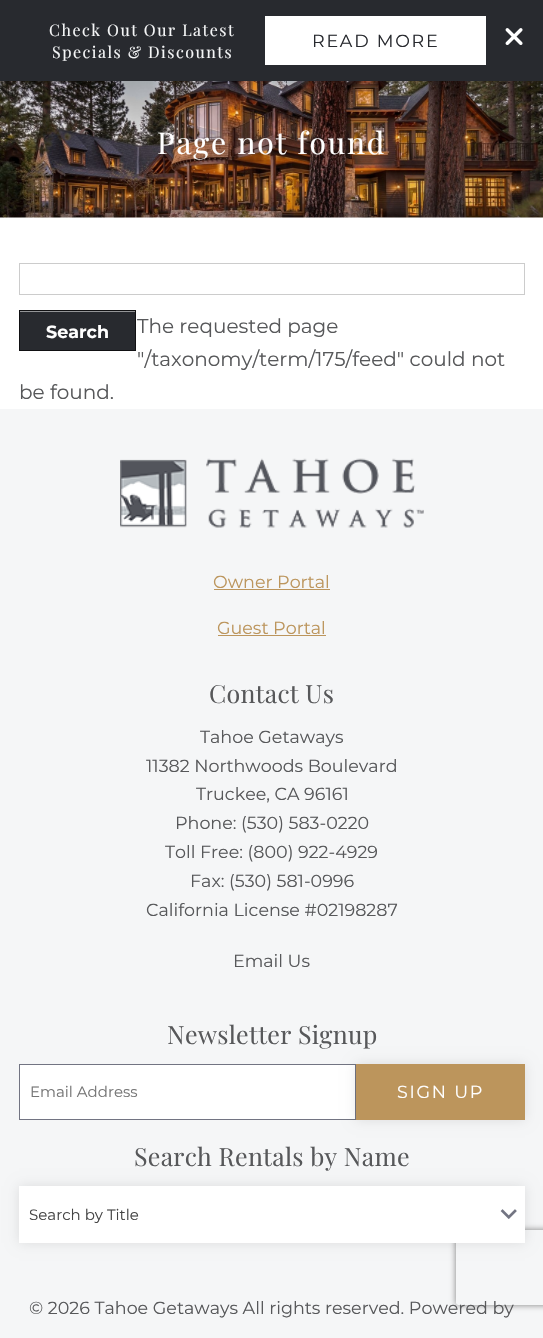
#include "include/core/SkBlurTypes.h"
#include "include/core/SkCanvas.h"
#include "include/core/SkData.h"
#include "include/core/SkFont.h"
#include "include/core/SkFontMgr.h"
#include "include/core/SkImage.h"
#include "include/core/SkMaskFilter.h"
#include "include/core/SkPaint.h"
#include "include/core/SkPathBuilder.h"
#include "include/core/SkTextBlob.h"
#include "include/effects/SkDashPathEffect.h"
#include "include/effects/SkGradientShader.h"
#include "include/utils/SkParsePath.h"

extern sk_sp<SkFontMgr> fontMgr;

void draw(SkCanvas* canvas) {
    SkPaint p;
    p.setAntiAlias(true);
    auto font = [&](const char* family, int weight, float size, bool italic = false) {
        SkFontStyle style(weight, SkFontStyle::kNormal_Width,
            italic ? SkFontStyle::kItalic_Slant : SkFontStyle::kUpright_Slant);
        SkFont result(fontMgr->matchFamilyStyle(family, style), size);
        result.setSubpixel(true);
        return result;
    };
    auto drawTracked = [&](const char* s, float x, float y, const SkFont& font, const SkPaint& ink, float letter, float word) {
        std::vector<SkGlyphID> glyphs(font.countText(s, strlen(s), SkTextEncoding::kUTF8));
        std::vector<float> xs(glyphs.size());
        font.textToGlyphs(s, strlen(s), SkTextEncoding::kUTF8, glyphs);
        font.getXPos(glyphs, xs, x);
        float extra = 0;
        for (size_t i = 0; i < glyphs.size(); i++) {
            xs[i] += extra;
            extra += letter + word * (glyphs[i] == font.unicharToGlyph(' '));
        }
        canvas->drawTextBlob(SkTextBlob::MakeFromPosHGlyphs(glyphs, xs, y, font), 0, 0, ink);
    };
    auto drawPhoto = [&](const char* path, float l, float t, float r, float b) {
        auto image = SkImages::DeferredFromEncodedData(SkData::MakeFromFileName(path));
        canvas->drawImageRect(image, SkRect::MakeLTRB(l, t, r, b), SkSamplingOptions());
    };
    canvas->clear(0xFFFFFFFF);
    p.setColor(0xFF282A2F);
    canvas->drawRect(SkRect::MakeLTRB(0, 0, 543, 81), p);
    auto font1 = font("Playfair Display", 400, 16);
    p.setColor(0xFFF5F6F7);
    drawTracked("Check Out Our Latest", 49, 36, font1, p, 1.5f, 0);
    drawTracked("Specials & Discounts", 52, 58, font1, p, 1.5f, 0);
    p.setColor(0xFFFFFFFF);
    canvas->drawRect(SkRect::MakeLTRB(265, 16, 486, 65), p);
    auto font2 = font("Montserrat", 400, 17.5f);
    p.setColor(0xFF282A2F);
    drawTracked("READ MORE", 312, 47, font2, p, 1.75f, 0);
    drawPhoto("media/1.png", 505, 28, 523, 45);
    drawPhoto("media/2.png", 0, 81, 543, 218);
    auto font3 = font("Playfair Display", 400, 30);
    p.setColor(0xFFFFFFFF);
    drawTracked("Page not found", 157, 154, font3, p, 1.9f, 0);
    p.setStyle(SkPaint::kStroke_Style);
    p.setStrokeWidth(1);
    p.setColor(0xFFCCCCCC);
    canvas->drawRect(SkRect::MakeLTRB(19.5f, 263.5f, 524.5f, 294.5f), p);
    p.setStyle(SkPaint::kFill_Style);
    p.setColor(0xFF282A2F);
    canvas->drawRect(SkRect::MakeLTRB(20, 312, 135, 350), p);
    p.setColor(0xFF949597);
    canvas->drawRect(SkRect::MakeLTRB(20, 311, 135, 312), p);
    p.setStyle(SkPaint::kStroke_Style);
    p.setColor(0xFF111113);
    canvas->drawRect(SkRect::MakeLTRB(19.5f, 310.5f, 135.5f, 350.5f), p);
    auto font4 = font("Montserrat", 700, 17.5f);
    p.setStyle(SkPaint::kFill_Style);
    p.setColor(0xFFFFFFFF);
    canvas->drawString("Search", 46, 338, font4, p);
    auto font5 = font("Montserrat", 400, 20);
    p.setColor(0xFF57585A);
    {
        const struct { const char* s; float x, y; } items[] = {
            {"The requested page", 137, 333},
            {"\"/taxonomy/term/175/feed\" could not", 137, 366},
            {"be found.", 19, 399},
        };
        for (auto [s, x, y] : items) {
            canvas->drawString(s, x, y, font5, p);
        }
    }
    p.setColor(0xFFF5F6F7);
    canvas->drawRect(SkRect::MakeLTRB(0, 409, 543, 1338), p);
    drawPhoto("media/3.png", 120, 458, 424, 528);
    p.setColor(0xFFBC955C);
    canvas->drawString("Owner Portal", 213, 588, font2, p);
    canvas->drawRect(SkRect::MakeLTRB(214, 589, 330, 590), p);
    canvas->drawString("Guest Portal", 217, 634, font2, p);
    canvas->drawRect(SkRect::MakeLTRB(218, 635, 326, 636), p);
    auto font6 = font("Playfair Display", 400, 25);
    p.setColor(0xFF57585A);
    drawTracked("Contact Us", 209, 703, font6, p, 0.25f, 0);
    {
        const struct { const char* s; float x, y; } items[] = {
            {"Tahoe Getaways", 200, 743},
            {"11382 Northwoods Boulevard", 146, 772},
            {"Truckee, CA 96161", 196, 800},
            {"Phone: (530) 583-0220", 175, 829},
            {"Toll Free: (800) 922-4929", 165, 858},
            {"Fax: (530) 581-0996", 190, 887},
            {"California License #02198287", 146, 916},
            {"Email Us", 233, 967},
        };
        for (auto [s, x, y] : items) {
            canvas->drawString(s, x, y, font2, p);
        }
    }
    drawTracked("Newsletter Signup", 167, 1044, font6, p, 0.25f, 0);
    p.setColor(0xFFFFFFFF);
    canvas->drawRect(SkRect::MakeLTRB(19.5f, 1064.5f, 355.5f, 1119.5f), p);
    p.setStyle(SkPaint::kStroke_Style);
    p.setColor(0xFF727482);
    canvas->drawRect(SkRect::MakeLTRB(19.5f, 1064.5f, 355.5f, 1119.5f), p);
    auto font7 = font("Montserrat", 400, 15);
    p.setStyle(SkPaint::kFill_Style);
    p.setColor(0xFF757575);
    canvas->drawString("Email Address", 30, 1097, font7, p);
    p.setColor(0x1A000000);
    p.setMaskFilter(SkMaskFilter::MakeBlur(kNormal_SkBlurStyle, 6));
    canvas->drawRect(SkRect::MakeLTRB(356, 1064, 525, 1120), p);
    p.setMaskFilter(nullptr);
    p.setColor(0xFFBC955C);
    canvas->drawRect(SkRect::MakeLTRB(356, 1064, 525, 1120), p);
    p.setColor(0xFFFFFFFF);
    drawTracked("SIGN UP", 397, 1098, font2, p, 1.75f, 0);
    canvas->save();
    canvas->clipPath(SkPathBuilder(SkPathFillType::kEvenOdd).moveTo(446, 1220).lineTo(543, 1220).lineTo(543, 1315).lineTo(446, 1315).close().moveTo(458.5f, 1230).lineTo(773.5f, 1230).cubicTo(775, 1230, 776, 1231, 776, 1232.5f).lineTo(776, 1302.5f).cubicTo(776, 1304, 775, 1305, 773.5f, 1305).lineTo(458.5f, 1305).cubicTo(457, 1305, 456, 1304, 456, 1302.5f).lineTo(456, 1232.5f).cubicTo(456, 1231, 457, 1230, 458.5f, 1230).close().detach(), true);
    p.setColor(0xFF808080);
    p.setMaskFilter(SkMaskFilter::MakeBlur(kNormal_SkBlurStyle, 3));
    canvas->drawRoundRect(SkRect::MakeLTRB(456, 1230, 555, 1305), 2.5f, 2.5f, p);
    p.setMaskFilter(nullptr);
    canvas->restore();
    p.setColor(0xFF57585A);
    drawTracked("Search Rentals by Name", 134, 1166, font6, p, 0.25f, 0);
    p.setColor(0x1A000000);
    p.setMaskFilter(SkMaskFilter::MakeBlur(kNormal_SkBlurStyle, 6));
    canvas->drawRect(SkRect::MakeLTRB(19, 1186, 525, 1243), p);
    p.setMaskFilter(nullptr);
    p.setColor(0xFFFFFFFF);
    canvas->drawRect(SkRect::MakeLTRB(19, 1186, 525, 1243), p);
    drawPhoto("media/4.png", 500, 1209, 517, 1219);
    p.setColor(0xFF444444);
    canvas->drawString("Search by Title", 29, 1220, font7, p);
    p.setColor(0xFF57585A);
    canvas->drawString("© 2026 Tahoe Getaways All rights reserved. Powered by", 29, 1314, font2, p);
}
